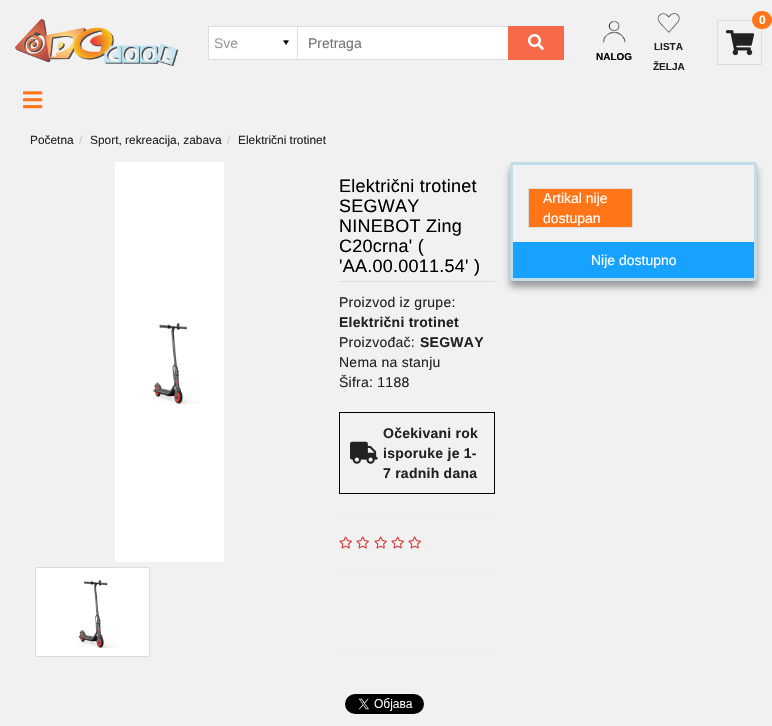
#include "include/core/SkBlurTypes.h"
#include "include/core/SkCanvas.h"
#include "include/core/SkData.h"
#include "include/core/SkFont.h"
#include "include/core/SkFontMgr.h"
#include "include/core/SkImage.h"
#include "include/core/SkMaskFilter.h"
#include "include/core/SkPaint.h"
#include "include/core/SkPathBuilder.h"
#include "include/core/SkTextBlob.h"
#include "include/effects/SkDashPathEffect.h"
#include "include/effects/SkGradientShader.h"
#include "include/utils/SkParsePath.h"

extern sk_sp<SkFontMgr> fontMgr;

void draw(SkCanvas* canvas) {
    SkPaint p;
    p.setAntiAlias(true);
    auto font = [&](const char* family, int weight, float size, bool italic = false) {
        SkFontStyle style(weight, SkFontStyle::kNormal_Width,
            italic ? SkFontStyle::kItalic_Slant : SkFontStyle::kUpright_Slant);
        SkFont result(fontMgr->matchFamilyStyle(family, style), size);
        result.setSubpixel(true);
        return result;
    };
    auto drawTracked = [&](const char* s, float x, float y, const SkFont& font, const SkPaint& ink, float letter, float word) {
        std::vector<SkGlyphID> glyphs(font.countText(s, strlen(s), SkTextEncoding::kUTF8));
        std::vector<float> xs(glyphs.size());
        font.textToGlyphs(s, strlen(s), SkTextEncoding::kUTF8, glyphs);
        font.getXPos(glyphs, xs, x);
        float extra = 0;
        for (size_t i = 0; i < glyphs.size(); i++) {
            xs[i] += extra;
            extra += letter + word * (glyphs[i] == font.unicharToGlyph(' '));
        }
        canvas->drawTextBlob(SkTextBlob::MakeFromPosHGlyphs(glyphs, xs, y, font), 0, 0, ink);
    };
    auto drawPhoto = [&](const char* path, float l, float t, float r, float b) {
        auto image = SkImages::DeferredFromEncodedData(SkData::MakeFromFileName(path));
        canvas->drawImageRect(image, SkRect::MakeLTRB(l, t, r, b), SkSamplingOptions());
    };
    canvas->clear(0xFFF1F1F1);
    drawPhoto("media/1.png", 15, 19, 178, 66);
    p.setColor(0xFFFFFFFF);
    canvas->drawRect(SkRect::MakeLTRB(209, 27, 297, 59), p);
    drawPhoto("media/2.png", 283, 40, 289, 45);
    {
        const struct { float l, t, r, b; SkColor color; } items[] = {
            {208, 26, 297, 27, 0xFFDDDDDD},
            {208, 59, 297, 60, 0xFFDDDDDD},
            {208, 26, 209, 60, 0xFFDDDDDD},
        };
        for (auto [l, t, r, b, color] : items) {
            p.setColor(color);
            canvas->drawRect(SkRect::MakeLTRB(l, t, r, b), p);
        }
    }
    auto font1 = font("Liberation Sans", 400, 14);
    p.setColor(0xFF999999);
    canvas->drawString("Sve", 214, 48, font1, p);
    p.setColor(0xFFFFFFFF);
    canvas->drawRect(SkRect::MakeLTRB(298, 27, 508, 59), p);
    p.setStyle(SkPaint::kStroke_Style);
    p.setStrokeWidth(1);
    p.setColor(0xFFDDDDDD);
    canvas->drawRect(SkRect::MakeLTRB(297.5f, 26.5f, 563.5f, 59.5f), p);
    p.setStyle(SkPaint::kFill_Style);
    p.setColor(0xFF757575);
    canvas->drawString("Pretraga", 308, 48, font1, p);
    p.setColor(0xFFF8694A);
    canvas->drawRect(SkRect::MakeLTRB(508, 26, 564, 60), p);
    drawPhoto("media/3.png", 528, 34, 544, 50);
    drawPhoto("media/4.png", 602, 20, 626, 43);
    auto font2 = font("Liberation Sans", 700, 10);
    p.setColor(0xFF000000);
    canvas->drawString("NALOG", 596, 60, font2, p);
    drawPhoto("media/5.png", 657, 13, 680, 33);
    p.setColor(0xFF222222);
    canvas->drawString("LISTA", 654, 50, font2, p);
    canvas->drawString("ŽELJA", 653, 70, font2, p);
    p.setStyle(SkPaint::kStroke_Style);
    p.setColor(0xFFDDDDDD);
    canvas->drawRect(SkRect::MakeLTRB(717.5f, 20.5f, 761.5f, 64.5f), p);
    p.setStyle(SkPaint::kFill_Style);
    p.setColor(0xFFFF7518);
    canvas->drawRoundRect(SkRect::MakeLTRB(752, 11, 772, 29), 9, 9, p);
    auto font3 = font("Liberation Sans", 700, 12);
    p.setColor(0xFFFFFFFF);
    canvas->drawString("0", 759, 24, font3, p);
    drawPhoto("media/6.png", 726, 30, 755, 56);
    drawPhoto("media/7.png", 23, 91, 43, 109);
    auto font4 = font("Liberation Sans", 400, 11.9f);
    p.setColor(0xFF222222);
    canvas->drawString("Početna", 30, 144, font4, p);
    p.setColor(0xFFCCCCCC);
    canvas->drawString("/", 79, 144, font4, p);
    p.setColor(0xFF222222);
    canvas->drawString("Sport, rekreacija, zabava", 90, 144, font4, p);
    p.setColor(0xFFCCCCCC);
    canvas->drawString("/", 227, 144, font4, p);
    p.setColor(0xFF222222);
    canvas->drawString("Električni trotinet", 238, 144, font4, p);
    p.setColor(0xFFFFFFFF);
    canvas->drawRect(SkRect::MakeLTRB(115, 162, 224, 562), p);
    drawPhoto("media/8.png", 153, 323, 200, 404);
    canvas->drawRect(SkRect::MakeLTRB(35.5f, 567.5f, 149.5f, 656.5f), p);
    p.setStyle(SkPaint::kStroke_Style);
    p.setColor(0xFFDDDDDD);
    canvas->drawRect(SkRect::MakeLTRB(35.5f, 567.5f, 149.5f, 656.5f), p);
    drawPhoto("media/9.png", 78, 580, 119, 648);
    p.setStyle(SkPaint::kFill_Style);
    canvas->drawRect(SkRect::MakeLTRB(339, 281, 495, 282), p);
    auto font5 = font("Liberation Sans", 400, 18);
    p.setColor(0xFF000000);
    {
        const struct { const char* s; float x, y; } items[] = {
            {"Električni trotinet", 339, 192},
            {"SEGWAY", 339, 212},
            {"NINEBOT Zing", 339, 232},
            {"C20crna' (", 339, 252},
            {"'AA.00.0011.54' )", 339, 272},
        };
        for (auto [s, x, y] : items) {
            drawTracked(s, x, y, font5, p, 0.25f, 0);
        }
    }
    p.setColor(0xFF222222);
    drawTracked("Proizvod iz grupe:", 339, 307, font1, p, 0.25f, 0);
    auto font6 = font("Liberation Sans", 700, 14);
    drawTracked("Električni trotinet", 339, 327, font6, p, 0.25f, 0);
    drawTracked("Proizvođač:", 339, 347, font1, p, 0.25f, 0);
    drawTracked("SEGWAY", 420, 347, font6, p, 0.25f, 0);
    drawTracked("Nema na stanju", 339, 367, font1, p, 0.25f, 0);
    drawTracked("Šifra: 1188", 339, 387, font1, p, 0.25f, 0);
    p.setStyle(SkPaint::kStroke_Style);
    p.setColor(0xFF000000);
    canvas->drawRect(SkRect::MakeLTRB(339.5f, 412.5f, 494.5f, 493.5f), p);
    drawPhoto("media/10.png", 350, 441, 378, 464);
    p.setStyle(SkPaint::kFill_Style);
    p.setColor(0xFF222222);
    {
        const struct { const char* s; float x, y; } items[] = {
            {"Očekivani rok", 383, 438},
            {"isporuke je 1-", 383, 458},
            {"7 radnih dana", 383, 478},
        };
        for (auto [s, x, y] : items) {
            drawTracked(s, x, y, font6, p, 0.25f, 0);
        }
    }
    p.setColor(0xFFEEEEEE);
    canvas->drawRect(SkRect::MakeLTRB(339, 514, 495, 515), p);
    drawPhoto("media/11.png", 339, 536, 352, 549);
    drawPhoto("media/11.png", 356, 536, 369, 549);
    drawPhoto("media/11.png", 374, 536, 387, 549);
    drawPhoto("media/11.png", 391, 536, 404, 549);
    drawPhoto("media/11.png", 408, 536, 421, 549);
    canvas->drawRect(SkRect::MakeLTRB(339, 572, 495, 573), p);
    canvas->drawRect(SkRect::MakeLTRB(339, 653, 495, 654), p);
    drawPhoto("media/12.png", 345, 694, 424, 714);
    p.setColor(0xFF999999);
    p.setMaskFilter(SkMaskFilter::MakeBlur(kNormal_SkBlurStyle, 3.5f));
    canvas->drawRoundRect(SkRect::MakeLTRB(510, 168, 757, 287), 3, 3, p);
    p.setMaskFilter(nullptr);
    p.setColor(0xFFF1F1F1);
    canvas->drawRoundRect(SkRect::MakeLTRB(511.5f, 163.5f, 755.5f, 279.5f), 1.5f, 1.5f, p);
    p.setStyle(SkPaint::kStroke_Style);
    p.setStrokeWidth(3);
    p.setColor(0xFFC0DDE8);
    canvas->drawRoundRect(SkRect::MakeLTRB(511.5f, 163.5f, 755.5f, 279.5f), 1.5f, 1.5f, p);
    p.setStyle(SkPaint::kFill_Style);
    p.setColor(0xFFFF7518);
    canvas->drawRect(SkRect::MakeLTRB(528.5f, 188.5f, 632.5f, 227.5f), p);
    p.setStyle(SkPaint::kStroke_Style);
    p.setStrokeWidth(1);
    p.setColor(0xFFDDDDDD);
    canvas->drawRect(SkRect::MakeLTRB(528.5f, 188.5f, 632.5f, 227.5f), p);
    p.setStyle(SkPaint::kFill_Style);
    p.setColor(0xFFFFFFFF);
    canvas->drawString("Artikal nije", 543, 203, font1, p);
    canvas->drawString("dostupan", 543, 223, font1, p);
    p.setColor(0xFF18A2FF);
    canvas->drawRect(SkRect::MakeLTRB(513, 242, 754, 278), p);
    p.setColor(0xFFFFFFFF);
    canvas->drawString("Nije dostupno", 591, 265, font1, p);
}
